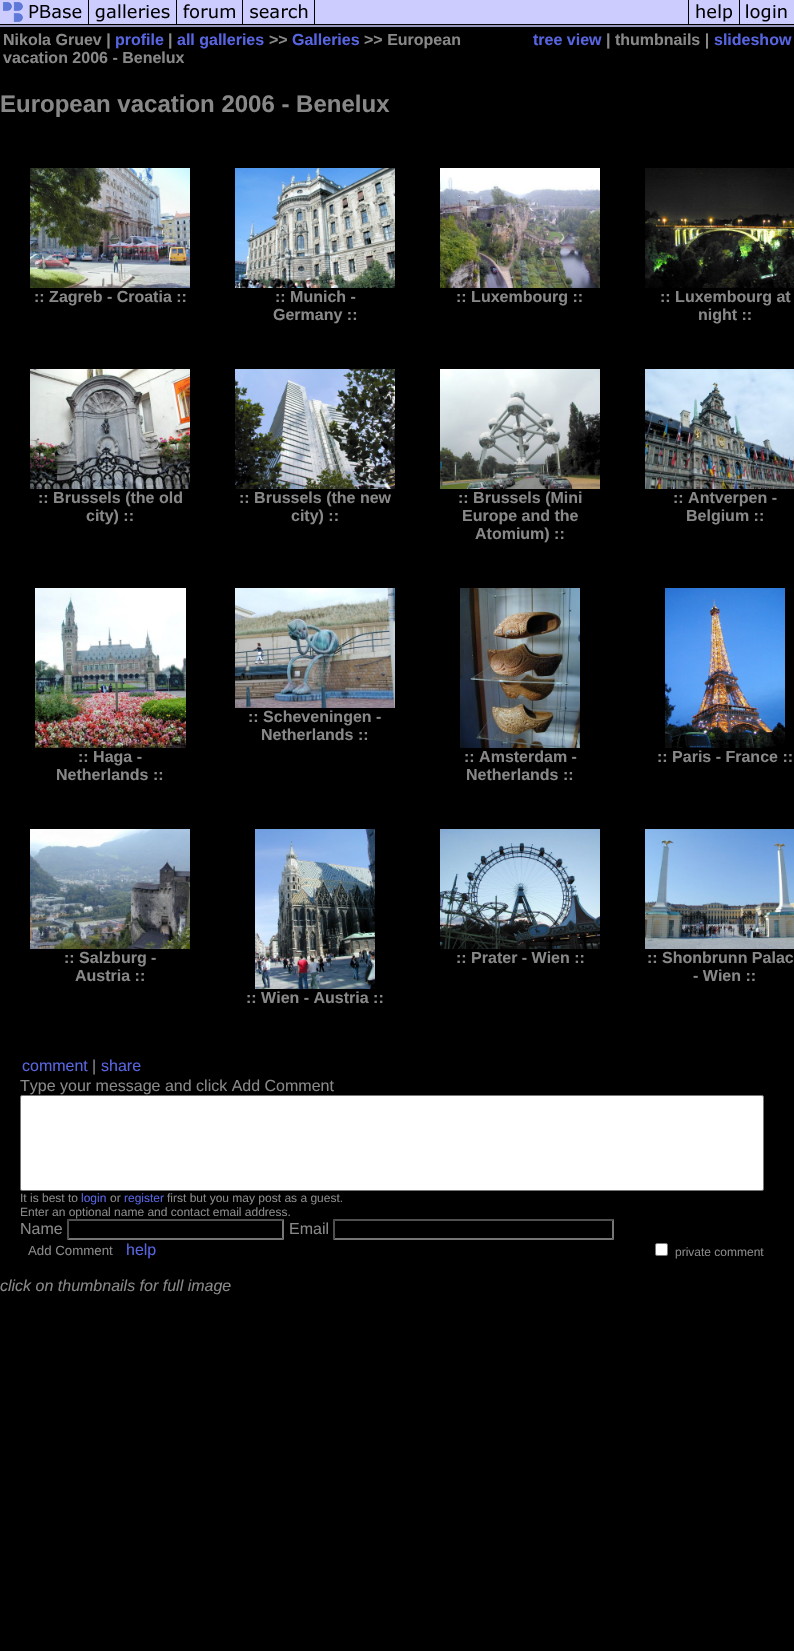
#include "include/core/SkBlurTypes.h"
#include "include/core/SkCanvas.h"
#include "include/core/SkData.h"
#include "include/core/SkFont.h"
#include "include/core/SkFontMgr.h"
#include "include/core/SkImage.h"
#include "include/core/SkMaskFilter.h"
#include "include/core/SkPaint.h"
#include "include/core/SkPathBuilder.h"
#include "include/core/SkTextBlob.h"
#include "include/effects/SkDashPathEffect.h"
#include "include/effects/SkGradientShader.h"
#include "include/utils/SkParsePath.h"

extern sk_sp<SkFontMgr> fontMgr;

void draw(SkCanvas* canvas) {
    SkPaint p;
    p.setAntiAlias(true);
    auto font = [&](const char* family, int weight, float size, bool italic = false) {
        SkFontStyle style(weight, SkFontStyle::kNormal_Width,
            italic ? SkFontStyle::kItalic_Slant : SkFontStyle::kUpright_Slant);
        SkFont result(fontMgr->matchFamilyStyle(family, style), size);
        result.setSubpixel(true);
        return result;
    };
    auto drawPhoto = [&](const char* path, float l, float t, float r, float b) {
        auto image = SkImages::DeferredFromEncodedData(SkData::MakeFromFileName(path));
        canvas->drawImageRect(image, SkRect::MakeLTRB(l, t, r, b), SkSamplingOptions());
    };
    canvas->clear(0xFF000000);
    drawPhoto("media/1.png", 0, 0, 89, 27);
    drawPhoto("media/2.png", 89, 0, 177, 27);
    drawPhoto("media/3.png", 177, 0, 243, 27);
    drawPhoto("media/4.png", 243, 0, 315, 27);
    drawPhoto("media/5.png", 315, 0, 688, 27);
    drawPhoto("media/6.png", 688, 0, 740, 27);
    drawPhoto("media/7.png", 740, 0, 794, 27);
    auto font1 = font("Liberation Sans", 700, 16);
    p.setColor(0xFF888888);
    canvas->drawString("Nikola Gruev |", 3, 45, font1, p);
    p.setColor(0xFF5865E1);
    canvas->drawString("profile", 115, 45, font1, p);
    p.setColor(0xFF888888);
    canvas->drawString("|", 168, 45, font1, p);
    p.setColor(0xFF5865E1);
    canvas->drawString("all galleries", 177, 45, font1, p);
    p.setColor(0xFF888888);
    canvas->drawString(">>", 269, 45, font1, p);
    p.setColor(0xFF5865E1);
    canvas->drawString("Galleries", 292, 45, font1, p);
    p.setColor(0xFF888888);
    canvas->drawString(">> European", 364, 45, font1, p);
    canvas->drawString("vacation 2006 - Benelux", 3, 63, font1, p);
    p.setColor(0xFF5865E1);
    canvas->drawString("tree view", 533, 45, font1, p);
    p.setColor(0xFF888888);
    canvas->drawString("| thumbnails |", 606, 45, font1, p);
    p.setColor(0xFF5865E1);
    canvas->drawString("slideshow", 714, 45, font1, p);
    auto font2 = font("Liberation Sans", 700, 24);
    p.setColor(0xFF888888);
    canvas->drawString("European vacation 2006 - Benelux", 0, 112, font2, p);
    drawPhoto("media/8.png", 30, 168, 190, 288);
    canvas->drawString(":: Zagreb - Croatia ::", 34, 302, font1, p);
    drawPhoto("media/9.png", 235, 168, 395, 288);
    canvas->drawString(":: Munich -", 275, 302, font1, p);
    canvas->drawString("Germany ::", 273, 320, font1, p);
    drawPhoto("media/10.png", 440, 168, 600, 288);
    canvas->drawString(":: Luxembourg ::", 456, 302, font1, p);
    drawPhoto("media/11.png", 645, 168, 794, 288);
    canvas->drawString(":: Luxembourg at", 660, 302, font1, p);
    canvas->drawString("night ::", 698, 320, font1, p);
    drawPhoto("media/12.png", 30, 369, 190, 489);
    canvas->drawString(":: Brussels (the old", 38, 503, font1, p);
    canvas->drawString("city) ::", 86, 521, font1, p);
    drawPhoto("media/13.png", 235, 369, 395, 489);
    canvas->drawString(":: Brussels (the new", 239, 503, font1, p);
    canvas->drawString("city) ::", 291, 521, font1, p);
    drawPhoto("media/14.png", 440, 369, 600, 489);
    {
        const struct { const char* s; float x, y; } items[] = {
            {":: Brussels (Mini", 458, 503},
            {"Europe and the", 462, 521},
            {"Atomium) ::", 475, 539},
        };
        for (auto [s, x, y] : items) {
            canvas->drawString(s, x, y, font1, p);
        }
    }
    drawPhoto("media/15.png", 645, 369, 794, 489);
    canvas->drawString(":: Antverpen -", 673, 503, font1, p);
    canvas->drawString("Belgium ::", 686, 521, font1, p);
    drawPhoto("media/16.png", 235, 588, 395, 708);
    canvas->drawString(":: Scheveningen -", 248, 722, font1, p);
    canvas->drawString("Netherlands ::", 261, 740, font1, p);
    drawPhoto("media/17.png", 35, 588, 186, 748);
    canvas->drawString(":: Haga -", 78, 762, font1, p);
    canvas->drawString("Netherlands ::", 56, 780, font1, p);
    drawPhoto("media/18.png", 460, 588, 580, 748);
    canvas->drawString(":: Amsterdam -", 464, 762, font1, p);
    canvas->drawString("Netherlands ::", 466, 780, font1, p);
    drawPhoto("media/19.png", 665, 588, 785, 748);
    canvas->drawString(":: Paris - France ::", 657, 762, font1, p);
    drawPhoto("media/20.png", 30, 829, 190, 949);
    canvas->drawString(":: Salzburg -", 64, 963, font1, p);
    canvas->drawString("Austria ::", 75, 981, font1, p);
    drawPhoto("media/21.png", 440, 829, 600, 949);
    canvas->drawString(":: Prater - Wien ::", 456, 963, font1, p);
    drawPhoto("media/22.png", 645, 829, 794, 949);
    canvas->drawString(":: Shonbrunn Palac", 647, 963, font1, p);
    canvas->drawString("- Wien ::", 693, 981, font1, p);
    drawPhoto("media/23.png", 255, 829, 375, 989);
    canvas->drawString(":: Wien - Austria ::", 246, 1003, font1, p);
    auto font3 = font("Liberation Sans", 400, 16);
    p.setColor(0xFF5865E1);
    canvas->drawString("comment", 22, 1071, font3, p);
    p.setColor(0xFF888888);
    canvas->drawString("|", 92, 1071, font3, p);
    p.setColor(0xFF5865E1);
    canvas->drawString("share", 101, 1071, font3, p);
    p.setColor(0xFF888888);
    canvas->drawString("Type your message and click Add Comment", 20, 1091, font3, p);
    p.setColor(0xFFFFFFFF);
    canvas->drawRoundRect(SkRect::MakeLTRB(20.5f, 1095.5f, 763.5f, 1190.5f), 1.5f, 1.5f, p);
    p.setStyle(SkPaint::kStroke_Style);
    p.setStrokeWidth(1);
    p.setColor(0xFF767676);
    canvas->drawRoundRect(SkRect::MakeLTRB(20.5f, 1095.5f, 763.5f, 1190.5f), 1.5f, 1.5f, p);
    auto font4 = font("Liberation Sans", 400, 12);
    p.setStyle(SkPaint::kFill_Style);
    p.setColor(0xFF888888);
    canvas->drawString("It is best to", 20, 1202, font4, p);
    p.setColor(0xFF5865E1);
    canvas->drawString("login", 81, 1202, font4, p);
    p.setColor(0xFF888888);
    canvas->drawString("or", 110, 1202, font4, p);
    p.setColor(0xFF5865E1);
    canvas->drawString("register", 124, 1202, font4, p);
    p.setColor(0xFF888888);
    canvas->drawString("first but you may post as a guest.", 167, 1202, font4, p);
    canvas->drawString("Enter an optional name and contact email address.", 20, 1216, font4, p);
    canvas->drawString("Name", 20, 1234, font3, p);
    p.setColor(0xFF4F4F4F);
    canvas->drawPath(SkPathBuilder().moveTo(67, 1219).lineTo(284, 1219).lineTo(282, 1221).lineTo(69, 1221).close().detach(), p);
    p.setColor(0xFF767676);
    canvas->drawPath(SkPathBuilder().moveTo(284, 1219).lineTo(284, 1240).lineTo(282, 1238).lineTo(282, 1221).close().detach(), p);
    canvas->drawPath(SkPathBuilder().moveTo(284, 1240).lineTo(67, 1240).lineTo(69, 1238).lineTo(282, 1238).close().detach(), p);
    p.setColor(0xFF4F4F4F);
    canvas->drawPath(SkPathBuilder().moveTo(67, 1240).lineTo(67, 1219).lineTo(69, 1221).lineTo(69, 1238).close().detach(), p);
    p.setColor(0xFF888888);
    canvas->drawString("Email", 289, 1234, font3, p);
    p.setColor(0xFF4F4F4F);
    canvas->drawPath(SkPathBuilder().moveTo(333, 1219).lineTo(614, 1219).lineTo(612, 1221).lineTo(335, 1221).close().detach(), p);
    p.setColor(0xFF767676);
    canvas->drawPath(SkPathBuilder().moveTo(614, 1219).lineTo(614, 1240).lineTo(612, 1238).lineTo(612, 1221).close().detach(), p);
    canvas->drawPath(SkPathBuilder().moveTo(614, 1240).lineTo(333, 1240).lineTo(335, 1238).lineTo(612, 1238).close().detach(), p);
    p.setColor(0xFF4F4F4F);
    canvas->drawPath(SkPathBuilder().moveTo(333, 1240).lineTo(333, 1219).lineTo(335, 1221).lineTo(335, 1238).close().detach(), p);
    auto font5 = font("Liberation Sans", 400, 13.25f);
    p.setColor(0xFF888888);
    canvas->drawString("Add Comment", 28, 1255, font5, p);
    p.setColor(0xFF5865E1);
    canvas->drawString("help", 126, 1255, font3, p);
    p.setColor(0xFFFFFFFF);
    canvas->drawRoundRect(SkRect::MakeLTRB(655.5f, 1243.5f, 667.5f, 1255.5f), 1.5f, 1.5f, p);
    p.setStyle(SkPaint::kStroke_Style);
    p.setColor(0xFF767676);
    canvas->drawRoundRect(SkRect::MakeLTRB(655.5f, 1243.5f, 667.5f, 1255.5f), 1.5f, 1.5f, p);
    p.setStyle(SkPaint::kFill_Style);
    p.setColor(0xFF888888);
    canvas->drawString("private comment", 675, 1256, font4, p);
    auto font6 = font("Liberation Sans", 400, 16, true);
    canvas->drawString("click on thumbnails for full image", 0, 1291, font6, p);
}
